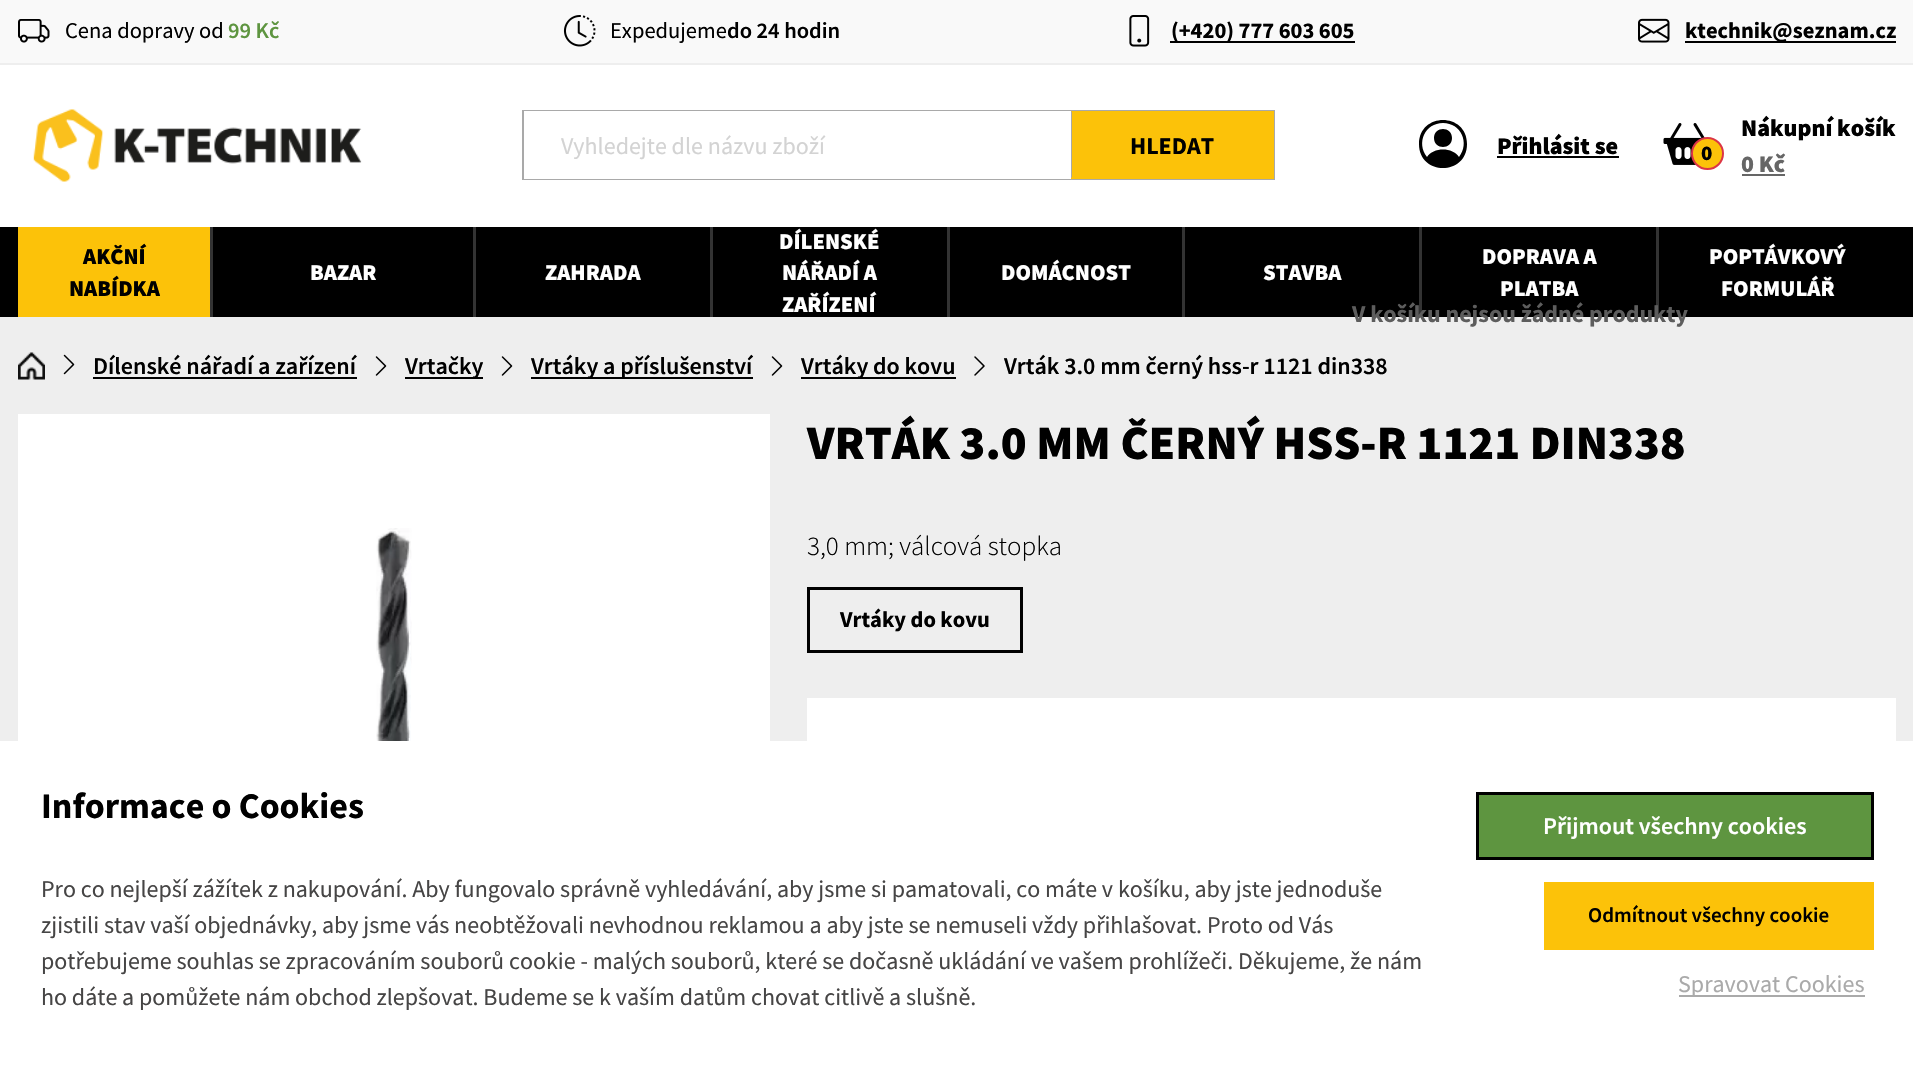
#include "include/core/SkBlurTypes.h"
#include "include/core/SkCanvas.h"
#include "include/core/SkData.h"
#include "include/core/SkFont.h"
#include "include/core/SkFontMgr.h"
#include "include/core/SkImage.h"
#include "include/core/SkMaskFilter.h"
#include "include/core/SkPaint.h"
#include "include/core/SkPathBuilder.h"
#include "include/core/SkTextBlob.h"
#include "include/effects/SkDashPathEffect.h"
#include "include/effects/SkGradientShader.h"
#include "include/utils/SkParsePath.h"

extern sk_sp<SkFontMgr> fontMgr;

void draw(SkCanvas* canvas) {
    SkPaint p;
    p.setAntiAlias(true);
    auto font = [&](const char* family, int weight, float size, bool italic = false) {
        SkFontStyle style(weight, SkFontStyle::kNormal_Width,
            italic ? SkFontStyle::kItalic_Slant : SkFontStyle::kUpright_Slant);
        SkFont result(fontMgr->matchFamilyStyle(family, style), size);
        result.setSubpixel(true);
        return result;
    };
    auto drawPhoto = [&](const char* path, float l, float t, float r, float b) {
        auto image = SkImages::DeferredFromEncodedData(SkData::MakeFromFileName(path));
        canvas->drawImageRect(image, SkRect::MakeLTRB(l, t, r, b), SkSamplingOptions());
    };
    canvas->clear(0xFFEEEEEE);
    p.setColor(0xFFF9F9F9);
    canvas->drawRect(SkRect::MakeLTRB(0, 0, 1913, 63), p);
    drawPhoto("media/1.png", 18, 19, 50, 43);
    auto font1 = font("Source Sans Pro", 400, 22.5f);
    p.setColor(0xFF000000);
    canvas->drawString("Cena dopravy od", 65, 38, font1, p);
    auto font2 = font("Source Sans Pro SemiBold", 600, 22.5f);
    p.setColor(0xFF5E9540);
    canvas->drawString("99 Kč", 228, 38, font2, p);
    drawPhoto("media/2.png", 563, 15, 596, 47);
    p.setColor(0xFF000000);
    canvas->drawString("Expedujeme", 610, 38, font1, p);
    canvas->drawString("do 24 hodin", 727, 38, font2, p);
    drawPhoto("media/3.png", 1129, 15, 1150, 47);
    canvas->drawRect(SkRect::MakeLTRB(1170, 41, 1355, 43), p);
    auto font3 = font("Source Sans Pro", 700, 22.5f);
    canvas->drawString("(+420) 777 603 605", 1171, 38, font3, p);
    drawPhoto("media/4.png", 1638, 18, 1670, 43);
    canvas->drawRect(SkRect::MakeLTRB(1685, 41, 1896, 43), p);
    canvas->drawString("ktechnik@seznam.cz", 1685, 38, font3, p);
    p.setColor(0xFFFFFFFF);
    canvas->drawRect(SkRect::MakeLTRB(0, 65, 1913, 227), p);
    drawPhoto("media/5.png", 33, 109, 362, 182);
    p.setStyle(SkPaint::kStroke_Style);
    p.setStrokeWidth(2);
    p.setColor(0xFFA9A9A9);
    canvas->drawRect(SkRect::MakeLTRB(523, 111, 1274, 179), p);
    p.setStyle(SkPaint::kFill_Style);
    p.setColor(0xFFFFFFFF);
    canvas->drawRect(SkRect::MakeLTRB(524, 111, 1071, 179), p);
    auto font4 = font("Source Sans Pro", 400, 24);
    p.setColor(0xFFD3D3D3);
    canvas->drawString("Vyhledejte dle názvu zboží", 561, 154, font4, p);
    p.setColor(0xFFFCC209);
    canvas->drawRect(SkRect::MakeLTRB(1071, 111, 1274, 179), p);
    p.setColor(0xFFA9A9A9);
    canvas->drawPath(SkPathBuilder().moveTo(1071, 178).lineTo(1071, 111).lineTo(1072, 112).lineTo(1072, 177).close().detach(), p);
    auto font5 = font("Source Sans Pro", 700, 24);
    p.setColor(0xFF000000);
    canvas->drawString("HLEDAT", 1130, 154, font5, p);
    drawPhoto("media/6.png", 1663, 123, 1710, 165);
    p.setColor(0xFFFCC209);
    canvas->drawCircle(1707.5f, 153.5f, 15.5f, p);
    p.setStyle(SkPaint::kStroke_Style);
    p.setColor(0xFFDC3545);
    canvas->drawCircle(1707.5f, 153.5f, 15.5f, p);
    auto font6 = font("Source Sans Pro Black", 900, 21);
    p.setStyle(SkPaint::kFill_Style);
    p.setColor(0xFF000000);
    canvas->drawString("0", 1701, 160, font6, p);
    auto font7 = font("Source Sans Pro Black", 900, 24);
    canvas->drawString("Nákupní košík", 1741, 136, font7, p);
    p.setColor(0xFF666666);
    canvas->drawString("0 Kč", 1741, 172, font7, p);
    {
        const struct { float l, t, r, b; SkColor color; } items[] = {
            {1742, 174, 1785, 176, 0xFF666666},
            {0, 227, 1913, 317, 0xFF000000},
            {1419, 227, 1422, 317, 0xFF333333},
            {1656, 227, 1659, 317, 0xFF333333},
        };
        for (auto [l, t, r, b, color] : items) {
            p.setColor(color);
            canvas->drawRect(SkRect::MakeLTRB(l, t, r, b), p);
        }
    }
    p.setColor(0xFF5D5D5D);
    canvas->drawString("V košíku nejsou žádné produkty", 1352, 322, font5, p);
    p.setColor(0xFF000000);
    canvas->drawPath(SkPathBuilder().moveTo(1452, 138).cubicTo(1452, 150, 1434, 150, 1434, 138).cubicTo(1434, 126, 1452, 126, 1452, 138).close().moveTo(1419, 144).cubicTo(1419, 112, 1467, 112, 1467, 144).cubicTo(1467, 176, 1419, 176, 1419, 144).close().moveTo(1443, 123).cubicTo(1425, 123, 1416, 143, 1427, 157).cubicTo(1433, 147, 1453, 147, 1459, 157).cubicTo(1470, 143, 1461, 123, 1443, 123).close().detach(), p);
    canvas->drawString("Přihlásit se", 1497, 154, font7, p);
    {
        const struct { float l, t, r, b; SkColor color; } items[] = {
            {1497, 156, 1619, 158, 0xFF000000},
            {18, 227, 210, 317, 0xFFFCC209},
            {210, 227, 213, 317, 0xFF333333},
        };
        for (auto [l, t, r, b, color] : items) {
            p.setColor(color);
            canvas->drawRect(SkRect::MakeLTRB(l, t, r, b), p);
        }
    }
    auto font8 = font("Source Sans Pro Black", 900, 22.5f);
    p.setColor(0xFF000000);
    canvas->drawString("AKČNÍ", 83, 264, font8, p);
    canvas->drawString("NABÍDKA", 69, 296, font8, p);
    p.setColor(0xFF333333);
    canvas->drawRect(SkRect::MakeLTRB(473, 227, 476, 317), p);
    p.setColor(0xFFFFFFFF);
    canvas->drawString("BAZAR", 310, 280, font8, p);
    p.setColor(0xFF333333);
    canvas->drawRect(SkRect::MakeLTRB(710, 227, 713, 317), p);
    p.setColor(0xFFFFFFFF);
    canvas->drawString("ZAHRADA", 545, 280, font8, p);
    p.setColor(0xFF333333);
    canvas->drawRect(SkRect::MakeLTRB(947, 227, 950, 317), p);
    p.setColor(0xFFFFFFFF);
    {
        const struct { const char* s; float x, y; } items[] = {
            {"DÍLENSKÉ", 779, 249},
            {"NÁŘADÍ A", 782, 280},
            {"ZAŘÍZENÍ", 782, 312},
        };
        for (auto [s, x, y] : items) {
            canvas->drawString(s, x, y, font8, p);
        }
    }
    p.setColor(0xFF333333);
    canvas->drawRect(SkRect::MakeLTRB(1182, 227, 1185, 317), p);
    p.setColor(0xFFFFFFFF);
    {
        const struct { const char* s; float x, y; } items[] = {
            {"DOMÁCNOST", 1001, 280},
            {"STAVBA", 1263, 280},
            {"DOPRAVA A", 1482, 264},
            {"PLATBA", 1500, 296},
            {"POPTÁVKOVÝ", 1709, 264},
            {"FORMULÁŘ", 1721, 296},
        };
        for (auto [s, x, y] : items) {
            canvas->drawString(s, x, y, font8, p);
        }
    }
    drawPhoto("media/7.png", 18, 352, 45, 380);
    drawPhoto("media/8.png", 63, 354, 75, 375);
    auto font9 = font("Source Sans Pro SemiBold", 600, 24);
    p.setColor(0xFF000000);
    canvas->drawString("Dílenské nářadí a zařízení", 93, 374, font9, p);
    canvas->drawRect(SkRect::MakeLTRB(93, 377, 357, 379), p);
    drawPhoto("media/9.png", 375, 356, 387, 376);
    canvas->drawRect(SkRect::MakeLTRB(405, 377, 483, 379), p);
    canvas->drawString("Vrtačky", 405, 374, font9, p);
    drawPhoto("media/9.png", 501, 356, 513, 376);
    canvas->drawRect(SkRect::MakeLTRB(531, 377, 753, 379), p);
    canvas->drawString("Vrtáky a příslušenství", 531, 374, font9, p);
    drawPhoto("media/9.png", 771, 356, 783, 376);
    canvas->drawRect(SkRect::MakeLTRB(801, 377, 956, 379), p);
    canvas->drawString("Vrtáky do kovu", 801, 374, font9, p);
    drawPhoto("media/10.png", 974, 356, 985, 376);
    canvas->drawString("Vrták 3.0 mm černý hss-r 1121 din338", 1004, 374, font9, p);
    p.setColor(0xFFFFFFFF);
    canvas->drawRect(SkRect::MakeLTRB(18, 414, 770, 741), p);
    drawPhoto("media/11.png", 376, 528, 412, 741);
    auto font10 = font("Source Sans Pro Black", 900, 48);
    p.setColor(0xFF000000);
    canvas->drawString("VRTÁK 3.0 MM ČERNÝ HSS-R 1121 DIN338", 807, 459, font10, p);
    auto font11 = font("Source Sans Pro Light", 300, 27);
    canvas->drawString("3,0 mm; válcová stopka", 807, 555, font11, p);
    p.setStyle(SkPaint::kStroke_Style);
    p.setStrokeWidth(3);
    canvas->drawRect(SkRect::MakeLTRB(808.5f, 588.5f, 1021.5f, 651.5f), p);
    p.setStyle(SkPaint::kFill_Style);
    canvas->drawString("Vrtáky do kovu", 840, 627, font3, p);
    p.setColor(0xFFFFFFFF);
    canvas->drawRect(SkRect::MakeLTRB(807, 698, 1896, 741), p);
    canvas->drawRect(SkRect::MakeLTRB(0, 741, 1913, 1075), p);
    auto font12 = font("Source Sans Pro", 700, 36);
    p.setColor(0xFF000000);
    canvas->drawString("Informace o Cookies", 41, 818, font12, p);
    p.setColor(0xFF464545);
    {
        const struct { const char* s; float x, y; } items[] = {
            {"Pro co nejlepší zážítek z nakupování. Aby fungovalo správně vyhledávání, aby jsme si pamatovali, co máte v košíku, aby jste jednoduše", 41, 897},
            {"zjistili stav vaší objednávky, aby jsme vás neobtěžovali nevhodnou reklamou a aby jste se nemuseli vždy přihlašovat. Proto od Vás", 41, 933},
            {"potřebujeme souhlas se zpracováním souborů cookie - malých souborů, které se dočasně ukládání ve vašem prohlížeči. Děkujeme, že nám", 41, 969},
            {"ho dáte a pomůžete nám obchod zlepšovat. Budeme se k vaším datům chovat citlivě a slušně.", 41, 1005},
        };
        for (auto [s, x, y] : items) {
            canvas->drawString(s, x, y, font4, p);
        }
    }
    p.setColor(0xFF5E9540);
    canvas->drawRect(SkRect::MakeLTRB(1477.5f, 793.5f, 1872.5f, 858.5f), p);
    p.setStyle(SkPaint::kStroke_Style);
    p.setColor(0xFF000000);
    canvas->drawRect(SkRect::MakeLTRB(1477.5f, 793.5f, 1872.5f, 858.5f), p);
    p.setStyle(SkPaint::kFill_Style);
    p.setColor(0xFFFFFFFF);
    canvas->drawString("Přijmout všechny cookies", 1543, 834, font9, p);
    p.setColor(0xFFFCC209);
    canvas->drawRect(SkRect::MakeLTRB(1544, 882, 1874, 950), p);
    auto font13 = font("Source Sans Pro SemiBold", 600, 21);
    p.setColor(0xFF000000);
    canvas->drawString("Odmítnout všechny cookie", 1588, 922, font13, p);
    p.setColor(0xFFAAAAAA);
    canvas->drawRect(SkRect::MakeLTRB(1679, 995, 1865, 997), p);
    canvas->drawString("Spravovat Cookies", 1678, 992, font4, p);
}
